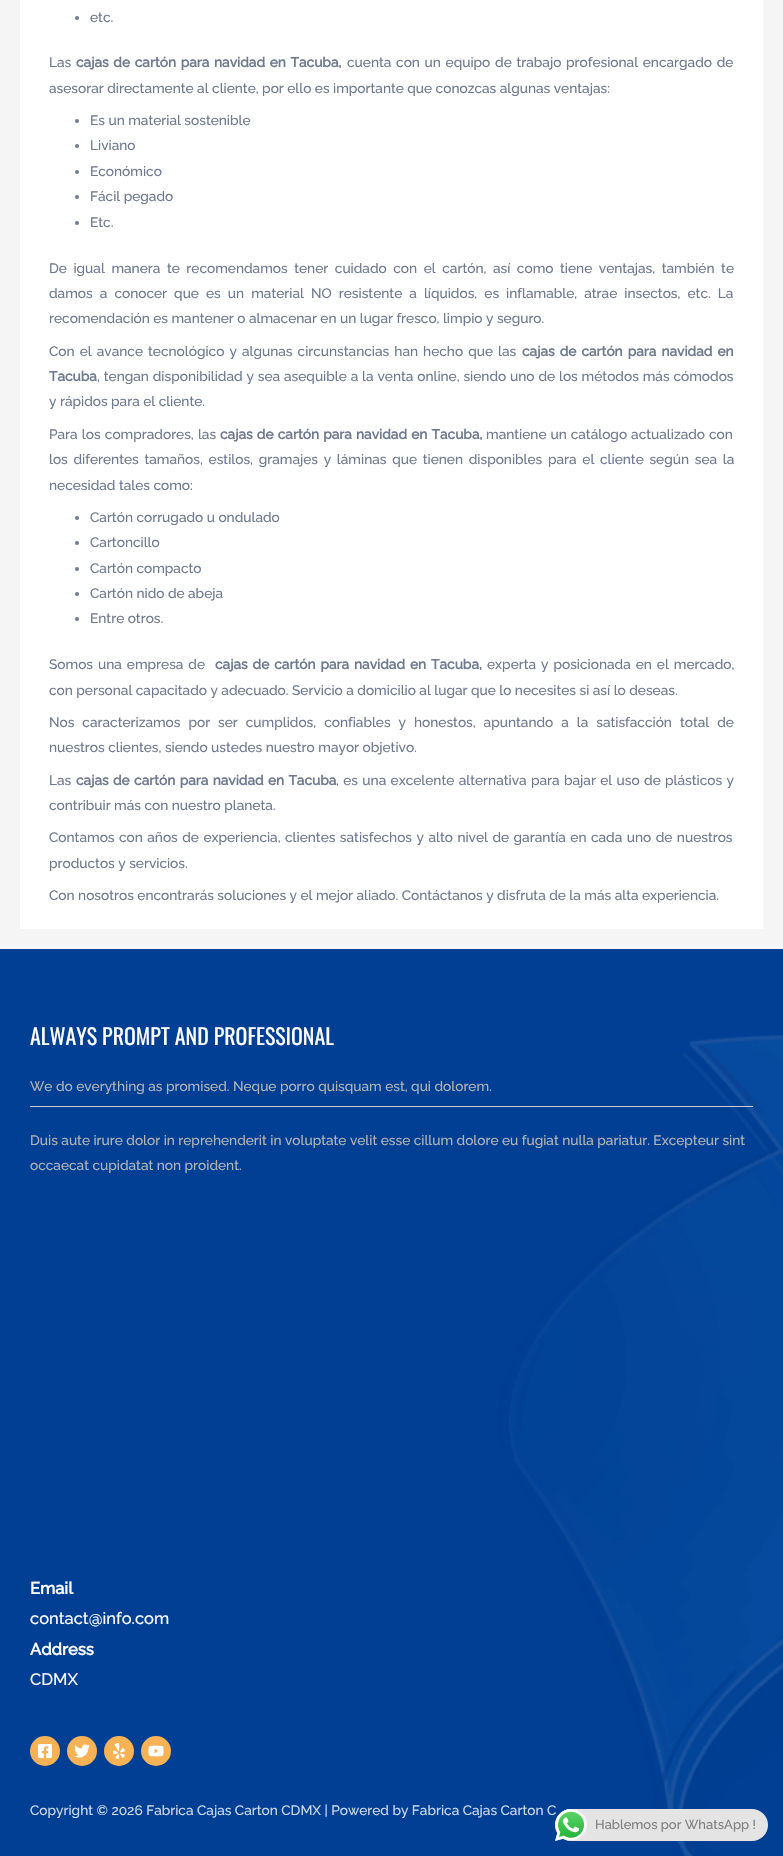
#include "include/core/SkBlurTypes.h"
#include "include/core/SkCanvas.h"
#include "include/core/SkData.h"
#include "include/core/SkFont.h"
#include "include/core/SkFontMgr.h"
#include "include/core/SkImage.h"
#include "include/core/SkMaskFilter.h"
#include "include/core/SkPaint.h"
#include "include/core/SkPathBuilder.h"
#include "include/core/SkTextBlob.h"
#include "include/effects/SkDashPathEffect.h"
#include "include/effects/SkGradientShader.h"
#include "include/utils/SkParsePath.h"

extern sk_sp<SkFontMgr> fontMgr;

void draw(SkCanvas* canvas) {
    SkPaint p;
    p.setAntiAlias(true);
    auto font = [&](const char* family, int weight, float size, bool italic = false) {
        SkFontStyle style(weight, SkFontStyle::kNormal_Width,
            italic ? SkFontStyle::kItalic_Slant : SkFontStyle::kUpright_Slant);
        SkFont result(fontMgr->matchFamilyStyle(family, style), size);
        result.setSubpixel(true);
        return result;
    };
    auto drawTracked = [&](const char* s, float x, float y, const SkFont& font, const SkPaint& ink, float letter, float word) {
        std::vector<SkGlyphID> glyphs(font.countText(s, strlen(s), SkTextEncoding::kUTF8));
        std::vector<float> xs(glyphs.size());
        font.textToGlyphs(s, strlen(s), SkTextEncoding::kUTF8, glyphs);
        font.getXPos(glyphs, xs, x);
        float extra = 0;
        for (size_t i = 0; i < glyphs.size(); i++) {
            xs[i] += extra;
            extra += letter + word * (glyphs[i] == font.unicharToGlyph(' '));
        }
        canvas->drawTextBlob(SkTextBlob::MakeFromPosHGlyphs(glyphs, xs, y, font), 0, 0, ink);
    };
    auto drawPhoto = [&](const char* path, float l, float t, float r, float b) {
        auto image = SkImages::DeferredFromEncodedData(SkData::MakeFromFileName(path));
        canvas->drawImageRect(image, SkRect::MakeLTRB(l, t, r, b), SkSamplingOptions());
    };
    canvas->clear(0xFFF5F5F5);
    p.setColor(0xFFFFFFFF);
    canvas->drawRect(SkRect::MakeLTRB(20, 0, 763, 929), p);
    p.setColor(0xFF6F798F);
    canvas->drawCircle(77, 18, 2, p);
    auto font1 = font("Raleway", 100, 13.68f);
    canvas->drawString("etc.", 90, 22, font1, p);
    canvas->drawString("Las", 49, 67, font1, p);
    auto font2 = font("Raleway", 700, 13.68f);
    drawTracked("cajas de cartón para navidad en Tacuba,", 76, 67, font2, p, 0, 1.25f);
    drawTracked("cuenta con un equipo de trabajo profesional encargado de", 347, 67, font1, p, 0, 1.25f);
    canvas->drawString("asesorar directamente al cliente, por ello es importante que conozcas algunas ventajas:", 49, 93, font1, p);
    canvas->drawCircle(77, 121, 2, p);
    canvas->drawString("Es un material sostenible", 90, 125, font1, p);
    canvas->drawCircle(77, 146, 2, p);
    canvas->drawString("Liviano", 90, 150, font1, p);
    canvas->drawCircle(77, 172, 2, p);
    canvas->drawString("Económico", 90, 176, font1, p);
    canvas->drawCircle(77, 197, 2, p);
    canvas->drawString("Fácil pegado", 90, 201, font1, p);
    canvas->drawCircle(77, 223, 2, p);
    canvas->drawString("Etc.", 90, 227, font1, p);
    drawTracked("De igual manera te recomendamos tener cuidado con el cartón, así como tiene ventajas, también te", 49, 273, font1, p, 0, 3.1f);
    drawTracked("damos a conocer que es un material NO resistente a líquidos, es inflamable, atrae insectos, etc. La", 49, 298, font1, p, 0, 3.6f);
    canvas->drawString("recomendación es mantener o almacenar en un lugar fresco, limpio y seguro.", 49, 323, font1, p);
    drawTracked("Con el avance tecnológico y algunas circunstancias han hecho que las", 49, 356, font1, p, 0, 1.6f);
    drawTracked("cajas de cartón para navidad en", 522, 356, font2, p, 0, 1.6f);
    canvas->drawString("Tacuba", 49, 381, font2, p);
    drawTracked(", tengan disponibilidad y sea asequible a la venta online, siendo uno de los métodos más cómodos", 97, 381, font1, p, 0, 0.4f);
    canvas->drawString("y rápidos para el cliente.", 49, 406, font1, p);
    drawTracked("Para los compradores, las", 49, 439, font1, p, 0, 0.75f);
    drawTracked("cajas de cartón para navidad en Tacuba,", 220, 439, font2, p, 0, 0.75f);
    drawTracked("mantiene un catálogo actualizado con", 486, 439, font1, p, 0, 0.5f);
    drawTracked("los diferentes tamaños, estilos, gramajes y láminas que tienen disponibles para el cliente según sea la", 49, 464, font1, p, 0, 2.25f);
    canvas->drawString("necesidad tales como:", 49, 490, font1, p);
    canvas->drawCircle(77, 518, 2, p);
    canvas->drawString("Cartón corrugado u ondulado", 90, 522, font1, p);
    canvas->drawCircle(77, 543, 2, p);
    canvas->drawString("Cartoncillo", 90, 547, font1, p);
    canvas->drawCircle(77, 569, 2, p);
    canvas->drawString("Cartón compacto", 90, 573, font1, p);
    canvas->drawCircle(77, 594, 2, p);
    canvas->drawString("Cartón nido de abeja", 90, 598, font1, p);
    canvas->drawCircle(77, 619, 2, p);
    canvas->drawString("Entre otros.", 90, 623, font1, p);
    drawTracked("Somos una empresa de", 49, 669, font1, p, 0, 1.5f);
    drawTracked("cajas de cartón para navidad en Tacuba,", 215, 669, font2, p, 0, 1.5f);
    drawTracked("experta y posicionada en el mercado,", 487, 669, font1, p, 0, 1.5f);
    canvas->drawString("con personal capacitado y adecuado. Servicio a domicilio al lugar que lo necesites si así lo deseas.", 49, 695, font1, p);
    drawTracked("Nos caracterizamos por ser cumplidos, confiables y honestos, apuntando a la satisfacción total de", 49, 727, font1, p, 0, 4.5f);
    canvas->drawString("nuestros clientes, siendo ustedes nuestro mayor objetivo.", 49, 752, font1, p);
    canvas->drawString("Las", 49, 785, font1, p);
    drawTracked("cajas de cartón para navidad en Tacuba", 76, 785, font2, p, 0, 0.9f);
    drawTracked(", es una excelente alternativa para bajar el uso de plásticos y", 336, 785, font1, p, 0, 0.9f);
    canvas->drawString("contribuir más con nuestro planeta.", 49, 810, font1, p);
    drawTracked("Contamos con años de experiencia, clientes satisfechos y alto nivel de garantía en cada uno de nuestros", 49, 842, font1, p, 0, 1);
    canvas->drawString("productos y servicios.", 49, 868, font1, p);
    canvas->drawString("Con nosotros encontrarás soluciones y el mejor aliado. Contáctanos y disfruta de la más alta experiencia.", 49, 900, font1, p);
    drawPhoto("media/1.png", 0, 949, 783, 1856);
    auto font3 = font("Oswald", 400, 21.9f);
    p.setColor(0xFFFFFFFF);
    canvas->drawString("ALWAYS PROMPT AND PROFESSIONAL", 30, 1045, font3, p);
    p.setColor(0xFFB4B4B4);
    canvas->drawString("We do everything as promised. Neque porro quisquam est, qui dolorem.", 30, 1091, font1, p);
    p.setColor(0xFFCCCCCC);
    canvas->drawRect(SkRect::MakeLTRB(30, 1106, 753, 1107), p);
    p.setColor(0xFFB4B4B4);
    canvas->drawString("Duis aute irure dolor in reprehenderit in voluptate velit esse cillum dolore eu fugiat nulla pariatur. Excepteur sint", 30, 1145, font1, p);
    canvas->drawString("occaecat cupidatat non proident.", 30, 1170, font1, p);
    auto font4 = font("Raleway", 700, 16.5f);
    p.setColor(0xFFFFFFFF);
    canvas->drawString("Email", 30, 1594, font4, p);
    auto font5 = font("Raleway", 100, 16.5f);
    canvas->drawString("contact@info.com", 30, 1624, font5, p);
    canvas->drawString("Address", 30, 1655, font4, p);
    canvas->drawString("CDMX", 30, 1685, font5, p);
    p.setColor(0xFFF7B255);
    canvas->drawCircle(45, 1751, 15, p);
    drawPhoto("media/2.png", 38, 1744, 52, 1758);
    canvas->drawCircle(82, 1751, 15, p);
    drawPhoto("media/3.png", 74, 1744, 90, 1758);
    canvas->drawCircle(119, 1751, 15, p);
    drawPhoto("media/4.png", 113, 1743, 125, 1759);
    canvas->drawCircle(156, 1751, 15, p);
    drawPhoto("media/5.png", 148, 1745, 164, 1757);
    p.setColor(0xFFCCD9EA);
    canvas->drawString("Copyright © 2026 Fabrica Cajas Carton CDMX | Powered by Fabrica Cajas Carton C", 30, 1815, font1, p);
    p.setColor(0xFFE4E4E4);
    canvas->drawRoundRect(SkRect::MakeLTRB(555, 1809, 768, 1841), 16, 16, p);
    drawPhoto("media/6.png", 555, 1809, 587, 1841);
    auto font6 = font("Raleway", 100, 13);
    p.setColor(0xFF7F7D7D);
    canvas->drawString("Hablemos por WhatsApp !", 595, 1829, font6, p);
}
